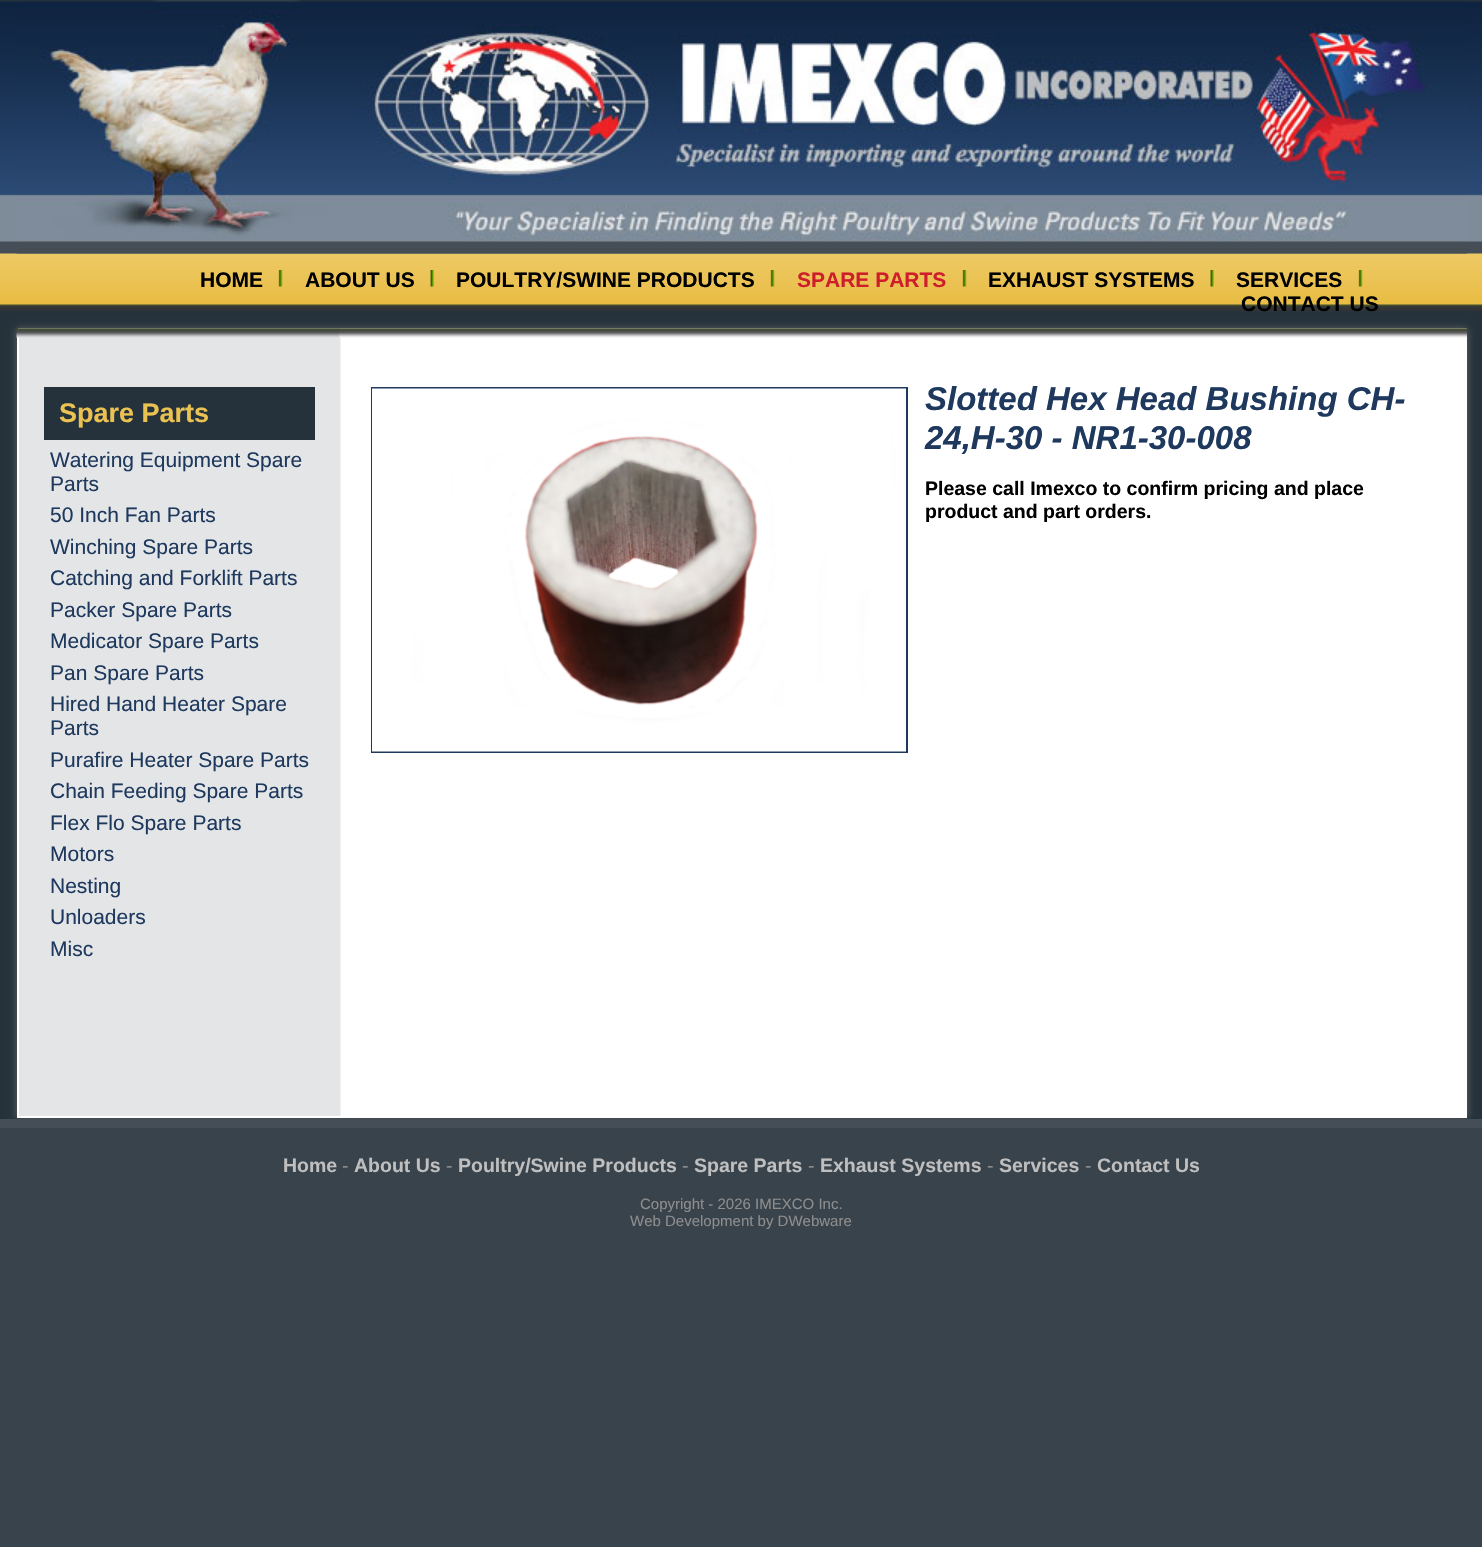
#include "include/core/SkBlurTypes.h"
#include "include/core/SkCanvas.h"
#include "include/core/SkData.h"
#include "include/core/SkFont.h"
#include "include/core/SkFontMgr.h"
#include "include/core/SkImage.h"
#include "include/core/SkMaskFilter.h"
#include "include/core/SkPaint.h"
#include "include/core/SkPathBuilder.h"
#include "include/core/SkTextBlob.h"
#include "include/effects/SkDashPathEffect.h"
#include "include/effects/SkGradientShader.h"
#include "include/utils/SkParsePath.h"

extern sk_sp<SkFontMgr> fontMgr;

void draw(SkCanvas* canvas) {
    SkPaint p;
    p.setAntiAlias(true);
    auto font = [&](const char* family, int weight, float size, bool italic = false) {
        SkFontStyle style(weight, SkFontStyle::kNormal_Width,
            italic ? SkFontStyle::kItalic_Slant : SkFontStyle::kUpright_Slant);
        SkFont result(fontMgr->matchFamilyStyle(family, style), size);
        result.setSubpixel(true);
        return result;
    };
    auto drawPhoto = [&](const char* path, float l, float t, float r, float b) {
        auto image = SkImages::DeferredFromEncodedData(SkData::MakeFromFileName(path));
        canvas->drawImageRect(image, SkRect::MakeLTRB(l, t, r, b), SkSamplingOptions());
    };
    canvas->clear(0xFF39434C);
    drawPhoto("media/1.png", 0, 0, 1482, 338);
    drawPhoto("media/2.png", 16, 0, 1467, 254);
    auto font1 = font("Liberation Sans", 700, 21);
    p.setColor(0xFF000000);
    canvas->drawString("HOME", 200, 287, font1, p);
    drawPhoto("media/3.png", 278, 270, 283, 287);
    canvas->drawString("ABOUT US", 305, 287, font1, p);
    drawPhoto("media/4.png", 430, 270, 434, 287);
    canvas->drawString("POULTRY/SWINE PRODUCTS", 456, 287, font1, p);
    drawPhoto("media/3.png", 770, 270, 775, 287);
    p.setColor(0xFFCF1E2B);
    canvas->drawString("SPARE PARTS", 797, 287, font1, p);
    drawPhoto("media/3.png", 962, 270, 967, 287);
    p.setColor(0xFF000000);
    canvas->drawString("EXHAUST SYSTEMS", 988, 287, font1, p);
    drawPhoto("media/4.png", 1210, 270, 1214, 287);
    canvas->drawString("SERVICES", 1236, 287, font1, p);
    drawPhoto("media/5.png", 1358, 270, 1363, 287);
    canvas->drawString("CONTACT US", 1241, 311, font1, p);
    p.setColor(0xFF25323B);
    canvas->drawRect(SkRect::MakeLTRB(0, 338, 1482, 1119), p);
    p.setColor(0xFF666666);
    p.setMaskFilter(SkMaskFilter::MakeBlur(kNormal_SkBlurStyle, 4));
    canvas->drawRect(SkRect::MakeLTRB(17, 329, 1467, 1118), p);
    p.setMaskFilter(nullptr);
    drawPhoto("media/7.png", 18, 328, 1467, 1116);
    p.setStyle(SkPaint::kStroke_Style);
    p.setStrokeWidth(2);
    p.setColor(0xFFFFFFFF);
    canvas->drawRect(SkRect::MakeLTRB(18, 330, 1466, 1117), p);
    drawPhoto("media/6.png", 16, 328, 1467, 338);
    p.setStyle(SkPaint::kFill_Style);
    p.setColor(0xFF25323B);
    canvas->drawRect(SkRect::MakeLTRB(44, 387, 315, 440), p);
    auto font2 = font("Liberation Sans", 700, 27);
    p.setColor(0xFFEBC252);
    canvas->drawString("Spare Parts", 59, 422, font2, p);
    auto font3 = font("Liberation Sans", 400, 21);
    p.setColor(0xFF1E395D);
    {
        const struct { const char* s; float x, y; } items[] = {
            {"Watering Equipment Spare", 50, 467},
            {"Parts", 50, 491},
            {"50 Inch Fan Parts", 50, 522},
            {"Winching Spare Parts", 50, 554},
            {"Catching and Forklift Parts", 50, 585},
            {"Packer Spare Parts", 50, 617},
            {"Medicator Spare Parts", 50, 648},
            {"Pan Spare Parts", 50, 680},
            {"Hired Hand Heater Spare", 50, 711},
            {"Parts", 50, 735},
            {"Purafire Heater Spare Parts", 50, 767},
            {"Chain Feeding Spare Parts", 50, 798},
            {"Flex Flo Spare Parts", 50, 830},
            {"Motors", 50, 861},
            {"Nesting", 50, 893},
            {"Unloaders", 50, 924},
            {"Misc", 50, 956},
        };
        for (auto [s, x, y] : items) {
            canvas->drawString(s, x, y, font3, p);
        }
    }
    p.setStyle(SkPaint::kStroke_Style);
    canvas->drawRect(SkRect::MakeLTRB(372, 388, 907, 752), p);
    drawPhoto("media/8.png", 372, 388, 906, 752);
    auto font4 = font("Liberation Sans", 700, 33, true);
    p.setStyle(SkPaint::kFill_Style);
    canvas->drawString("Slotted Hex Head Bushing CH-", 925, 410, font4, p);
    canvas->drawString("24,H-30 - NR1-30-008", 925, 449, font4, p);
    auto font5 = font("Liberation Sans", 700, 19.5f);
    p.setColor(0xFF000000);
    canvas->drawString("Please call Imexco to confirm pricing and place", 925, 495, font5, p);
    canvas->drawString("product and part orders.", 925, 518, font5, p);
    p.setColor(0xFF454E57);
    canvas->drawRect(SkRect::MakeLTRB(0, 1119, 1482, 1128), p);
    p.setColor(0xFFBFBFBF);
    canvas->drawString("Home", 283, 1172, font5, p);
    auto font6 = font("Liberation Sans", 400, 19.5f);
    p.setColor(0xFF8D8D8D);
    canvas->drawString("-", 342, 1172, font6, p);
    p.setColor(0xFFBFBFBF);
    canvas->drawString("About Us", 354, 1172, font5, p);
    p.setColor(0xFF8D8D8D);
    canvas->drawString("-", 446, 1172, font6, p);
    p.setColor(0xFFBFBFBF);
    canvas->drawString("Poultry/Swine Products", 458, 1172, font5, p);
    p.setColor(0xFF8D8D8D);
    canvas->drawString("-", 682, 1172, font6, p);
    p.setColor(0xFFBFBFBF);
    canvas->drawString("Spare Parts", 694, 1172, font5, p);
    p.setColor(0xFF8D8D8D);
    canvas->drawString("-", 808, 1172, font6, p);
    p.setColor(0xFFBFBFBF);
    canvas->drawString("Exhaust Systems", 820, 1172, font5, p);
    p.setColor(0xFF8D8D8D);
    canvas->drawString("-", 987, 1172, font6, p);
    p.setColor(0xFFBFBFBF);
    canvas->drawString("Services", 999, 1172, font5, p);
    p.setColor(0xFF8D8D8D);
    canvas->drawString("-", 1085, 1172, font6, p);
    p.setColor(0xFFBFBFBF);
    canvas->drawString("Contact Us", 1097, 1172, font5, p);
    auto font7 = font("Liberation Sans", 400, 15);
    p.setColor(0xFF8D8D8D);
    canvas->drawString("Copyright - 2026 IMEXCO Inc.", 640, 1209, font7, p);
    canvas->drawString("Web Development by DWebware", 630, 1226, font7, p);
}
